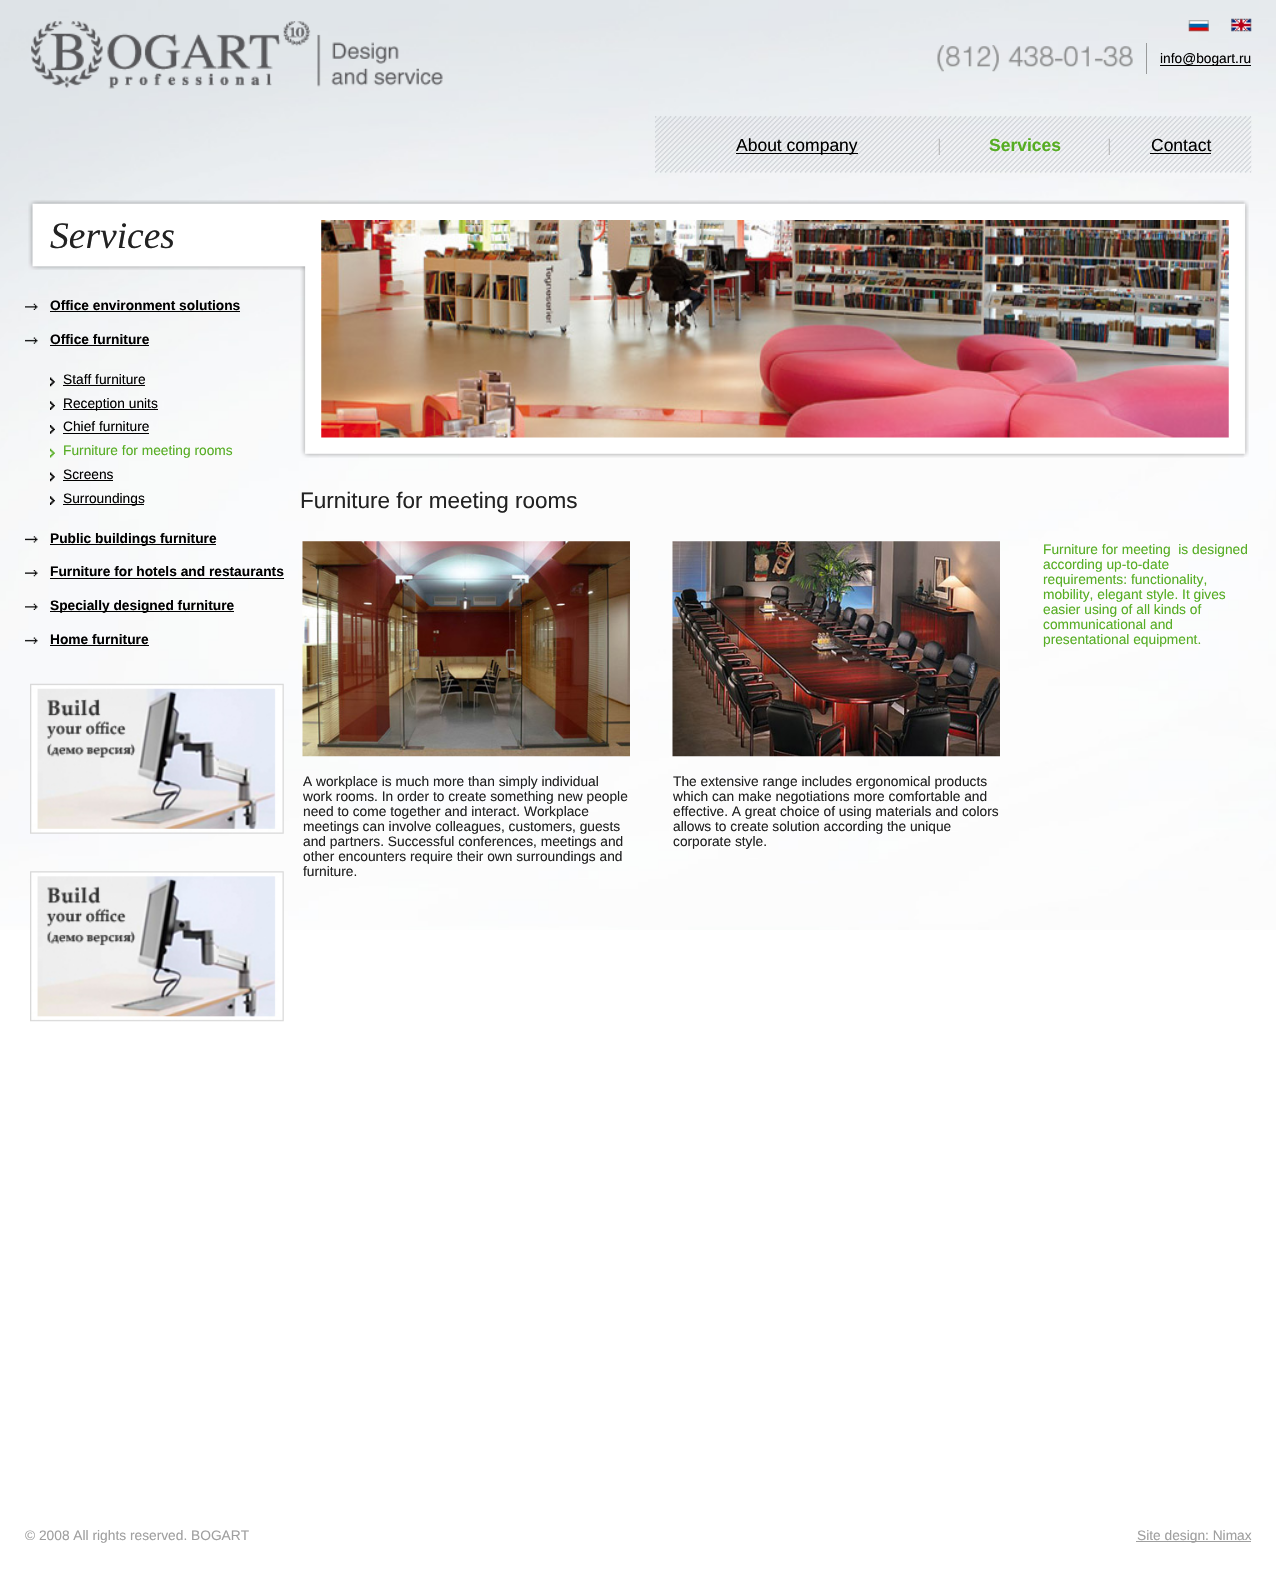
#include "include/core/SkBlurTypes.h"
#include "include/core/SkCanvas.h"
#include "include/core/SkData.h"
#include "include/core/SkFont.h"
#include "include/core/SkFontMgr.h"
#include "include/core/SkImage.h"
#include "include/core/SkMaskFilter.h"
#include "include/core/SkPaint.h"
#include "include/core/SkPathBuilder.h"
#include "include/core/SkTextBlob.h"
#include "include/effects/SkDashPathEffect.h"
#include "include/effects/SkGradientShader.h"
#include "include/utils/SkParsePath.h"

extern sk_sp<SkFontMgr> fontMgr;

void draw(SkCanvas* canvas) {
    SkPaint p;
    p.setAntiAlias(true);
    auto font = [&](const char* family, int weight, float size, bool italic = false) {
        SkFontStyle style(weight, SkFontStyle::kNormal_Width,
            italic ? SkFontStyle::kItalic_Slant : SkFontStyle::kUpright_Slant);
        SkFont result(fontMgr->matchFamilyStyle(family, style), size);
        result.setSubpixel(true);
        return result;
    };
    auto drawPhoto = [&](const char* path, float l, float t, float r, float b) {
        auto image = SkImages::DeferredFromEncodedData(SkData::MakeFromFileName(path));
        canvas->drawImageRect(image, SkRect::MakeLTRB(l, t, r, b), SkSamplingOptions());
    };
    canvas->clear(0xFFFFFFFF);
    drawPhoto("media/1.png", 0, 0, 1276, 930);
    drawPhoto("media/2.png", 31, 21, 443, 89);
    drawPhoto("media/3.png", 1188, 20, 1209, 32);
    drawPhoto("media/4.png", 1231, 18, 1252, 32);
    drawPhoto("media/5.png", 937, 45, 1133, 72);
    p.setColor(0xFF999B9B);
    canvas->drawRect(SkRect::MakeLTRB(1146, 43, 1147, 74), p);
    p.setColor(0xFF000000);
    canvas->drawRect(SkRect::MakeLTRB(1160, 65, 1251, 66), p);
    auto font1 = font("Liberation Sans", 400, 13.75f);
    canvas->drawString("info@bogart.ru", 1160, 63, font1, p);
    drawPhoto("media/6.png", 655, 116, 1252, 173);
    canvas->drawRect(SkRect::MakeLTRB(736, 153, 858, 154), p);
    auto font2 = font("Liberation Sans", 400, 17.5f);
    canvas->drawString("About company", 736, 151, font2, p);
    drawPhoto("media/7.png", 938, 138, 940, 155);
    auto font3 = font("Liberation Sans", 700, 17.5f);
    p.setColor(0xFF56AD23);
    canvas->drawString("Services", 989, 151, font3, p);
    drawPhoto("media/8.png", 1108, 138, 1110, 155);
    p.setColor(0xFF000000);
    canvas->drawString("Contact", 1151, 151, font2, p);
    canvas->drawRect(SkRect::MakeLTRB(1150, 153, 1211, 154), p);
    drawPhoto("media/9.png", 28, 200, 300, 270);
    auto font4 = font("Liberation Serif", 400, 37.5f, true);
    p.setColor(0xFF222222);
    canvas->drawString("Services", 50, 248, font4, p);
    drawPhoto("media/10.png", 25, 303, 38, 310);
    auto font5 = font("Liberation Sans", 700, 13.75f);
    p.setColor(0xFF000000);
    canvas->drawString("Office environment solutions", 50, 310, font5, p);
    canvas->drawRect(SkRect::MakeLTRB(50, 311, 240, 312), p);
    drawPhoto("media/11.png", 25, 337, 38, 344);
    canvas->drawString("Office furniture", 50, 344, font5, p);
    canvas->drawRect(SkRect::MakeLTRB(50, 345, 149, 346), p);
    drawPhoto("media/12.png", 50, 377, 55, 387);
    canvas->drawString("Staff furniture", 63, 384, font1, p);
    canvas->drawRect(SkRect::MakeLTRB(63, 385, 145, 386), p);
    drawPhoto("media/13.png", 50, 401, 55, 410);
    canvas->drawRect(SkRect::MakeLTRB(63, 409, 158, 410), p);
    canvas->drawString("Reception units", 63, 408, font1, p);
    drawPhoto("media/14.png", 50, 425, 55, 434);
    canvas->drawString("Chief furniture", 63, 431, font1, p);
    canvas->drawRect(SkRect::MakeLTRB(63, 433, 149, 434), p);
    drawPhoto("media/15.png", 50, 448, 55, 458);
    p.setColor(0xFF56AD23);
    canvas->drawString("Furniture for meeting rooms", 63, 455, font1, p);
    drawPhoto("media/16.png", 50, 472, 55, 482);
    p.setColor(0xFF000000);
    canvas->drawString("Screens", 63, 479, font1, p);
    canvas->drawRect(SkRect::MakeLTRB(63, 480, 113, 481), p);
    drawPhoto("media/17.png", 50, 496, 55, 505);
    canvas->drawRect(SkRect::MakeLTRB(63, 504, 144, 505), p);
    canvas->drawString("Surroundings", 63, 503, font1, p);
    drawPhoto("media/18.png", 25, 536, 38, 543);
    canvas->drawRect(SkRect::MakeLTRB(50, 544, 216, 545), p);
    canvas->drawString("Public buildings furniture", 50, 543, font5, p);
    drawPhoto("media/19.png", 25, 570, 38, 577);
    canvas->drawString("Furniture for hotels and restaurants", 50, 576, font5, p);
    canvas->drawRect(SkRect::MakeLTRB(50, 578, 284, 579), p);
    drawPhoto("media/20.png", 25, 603, 38, 610);
    canvas->drawRect(SkRect::MakeLTRB(50, 611, 234, 612), p);
    canvas->drawString("Specially designed furniture", 50, 610, font5, p);
    drawPhoto("media/21.png", 25, 637, 38, 644);
    canvas->drawString("Home furniture", 50, 644, font5, p);
    canvas->drawRect(SkRect::MakeLTRB(50, 645, 149, 646), p);
    drawPhoto("media/22.png", 30, 683, 284, 834);
    drawPhoto("media/23.png", 30, 871, 284, 1022);
    drawPhoto("media/24.png", 300, 200, 1244, 458);
    drawPhoto("media/25.png", 321, 220, 1229, 438);
    drawPhoto("media/26.png", 1243, 200, 1249, 457);
    auto font6 = font("Liberation Sans", 400, 22.5f);
    p.setColor(0xFF222222);
    canvas->drawString("Furniture for meeting rooms", 300, 508, font6, p);
    drawPhoto("media/27.png", 302, 541, 630, 757);
    drawPhoto("media/28.png", 672, 541, 1000, 757);
    p.setColor(0xFF56AD23);
    {
        const struct { const char* s; float x, y; } items[] = {
            {"Furniture for meeting  is designed", 1043, 554},
            {"according up-to-date", 1043, 569},
            {"requirements: functionality,", 1043, 584},
            {"mobility, elegant style. It gives", 1043, 599},
            {"easier using of all kinds of", 1043, 614},
            {"communicational and", 1043, 629},
            {"presentational equipment.", 1043, 644},
        };
        for (auto [s, x, y] : items) {
            canvas->drawString(s, x, y, font1, p);
        }
    }
    p.setColor(0xFF222222);
    {
        const struct { const char* s; float x, y; } items[] = {
            {"A workplace is much more than simply individual", 303, 786},
            {"work rooms. In order to create something new people", 303, 801},
            {"need to come together and interact. Workplace", 303, 816},
            {"meetings can involve colleagues, customers, guests", 303, 831},
            {"and partners. Successful conferences, meetings and", 303, 846},
            {"other encounters require their own surroundings and", 303, 861},
            {"furniture.", 303, 876},
            {"The extensive range includes ergonomical products", 673, 786},
            {"which can make negotiations more comfortable and", 673, 801},
            {"effective. A great choice of using materials and colors", 673, 816},
            {"allows to create solution according the unique", 673, 831},
            {"corporate style.", 673, 846},
        };
        for (auto [s, x, y] : items) {
            canvas->drawString(s, x, y, font1, p);
        }
    }
    p.setColor(0xFF9F9F9F);
    canvas->drawString("© 2008 All rights reserved. BOGART", 25, 1540, font1, p);
    canvas->drawRect(SkRect::MakeLTRB(1136, 1541, 1251, 1542), p);
    canvas->drawString("Site design: Nimax", 1137, 1540, font1, p);
}
